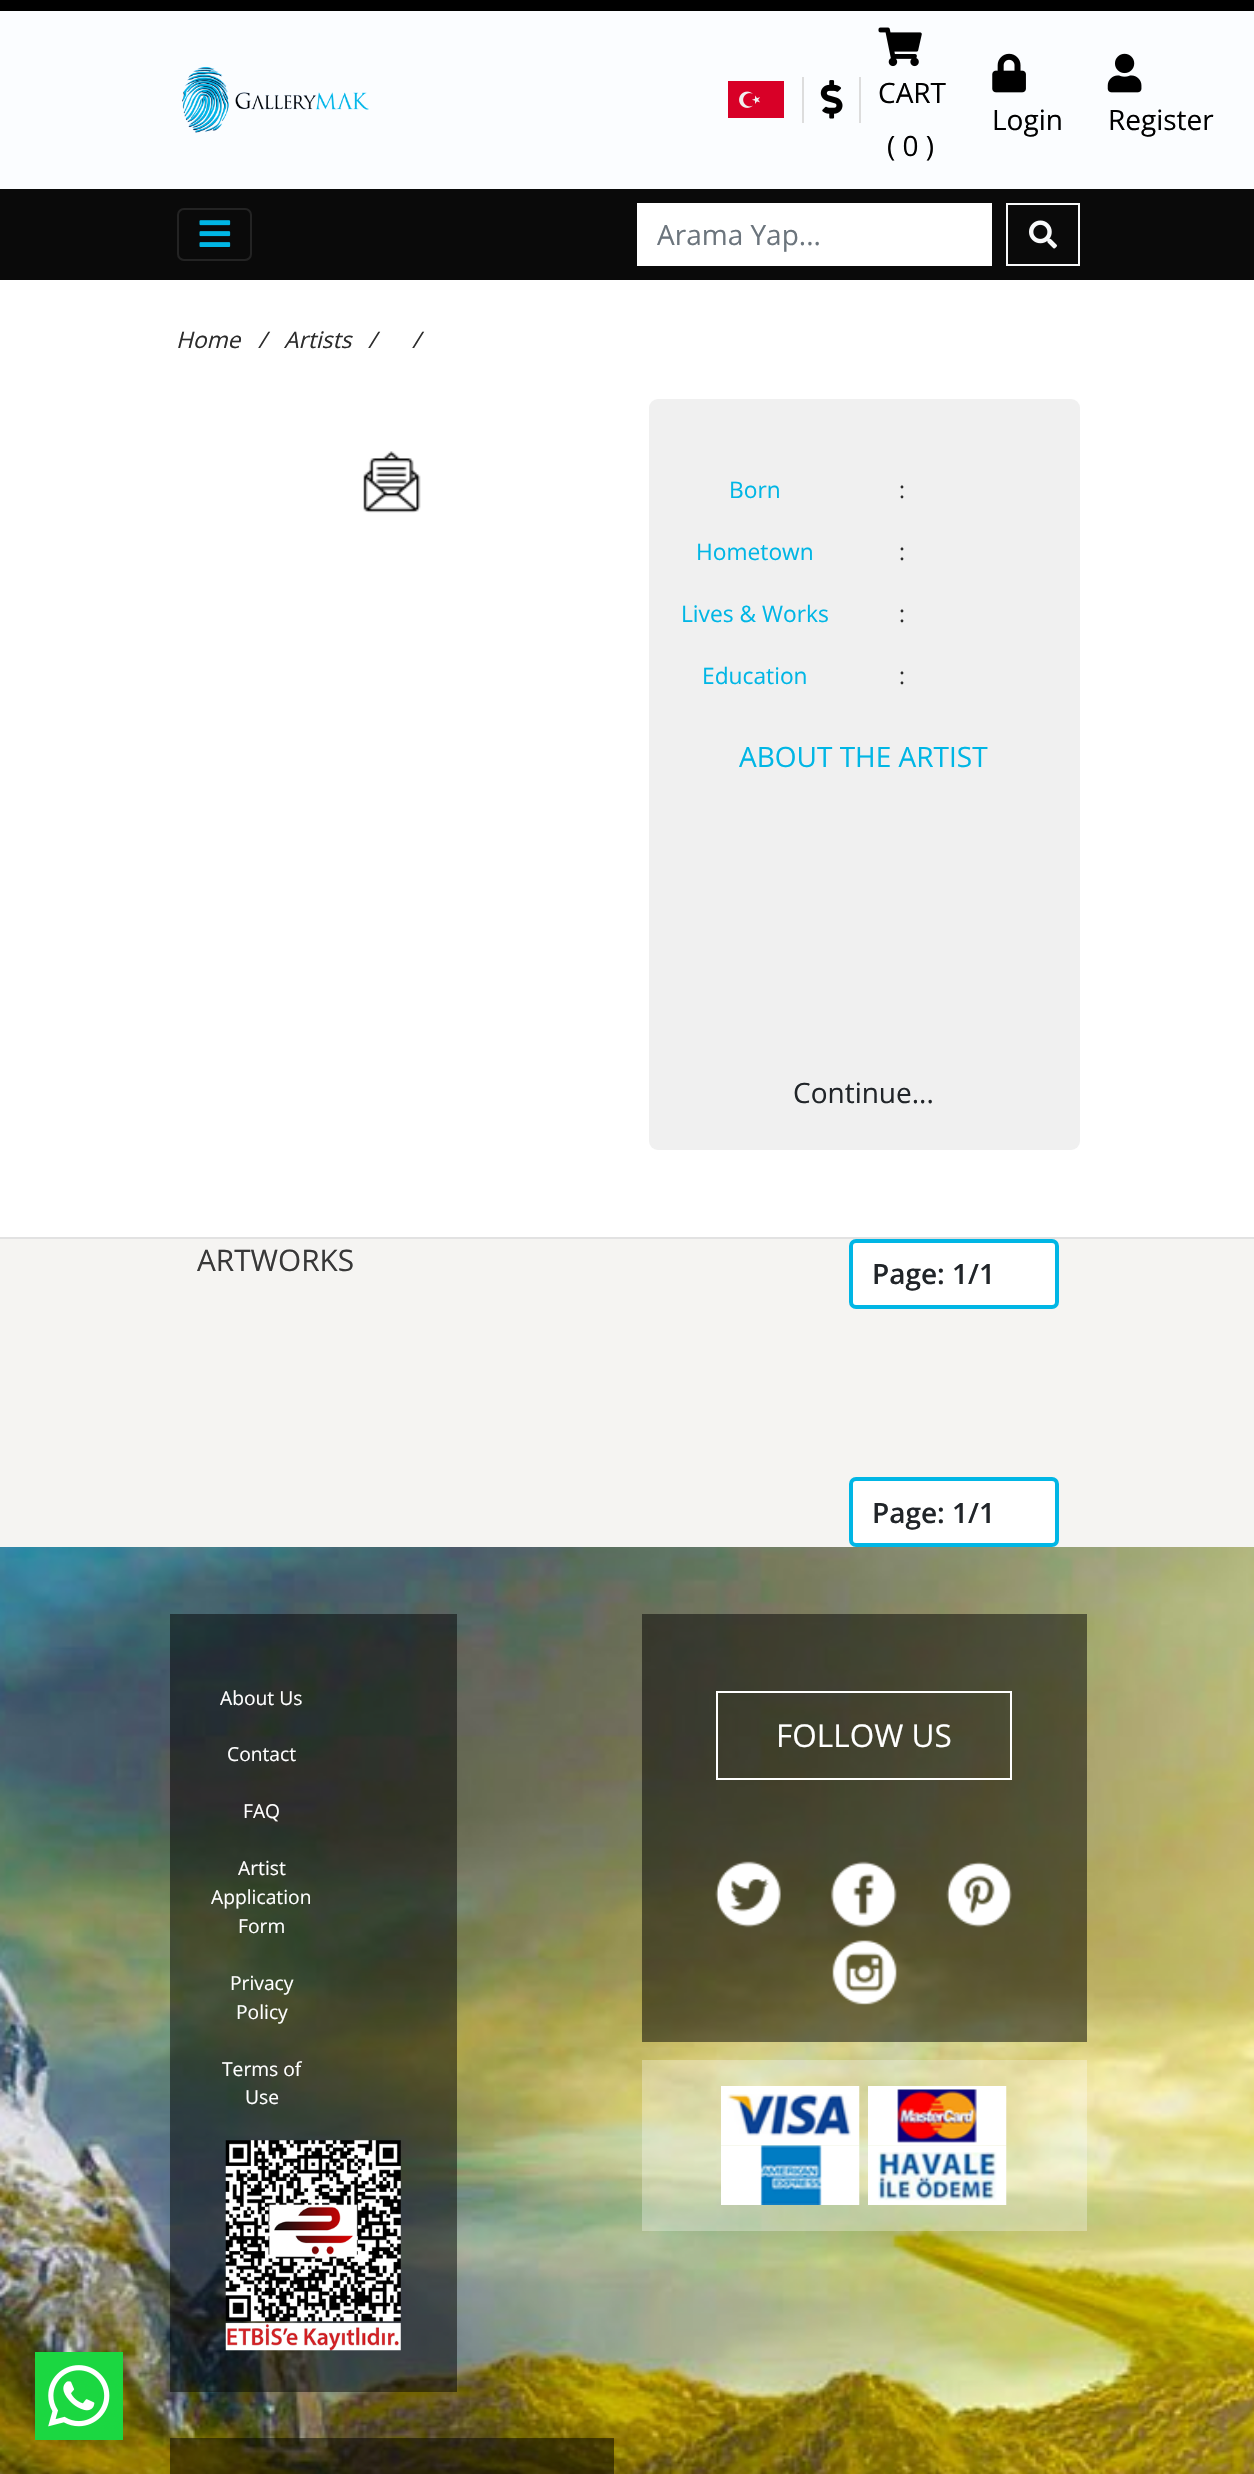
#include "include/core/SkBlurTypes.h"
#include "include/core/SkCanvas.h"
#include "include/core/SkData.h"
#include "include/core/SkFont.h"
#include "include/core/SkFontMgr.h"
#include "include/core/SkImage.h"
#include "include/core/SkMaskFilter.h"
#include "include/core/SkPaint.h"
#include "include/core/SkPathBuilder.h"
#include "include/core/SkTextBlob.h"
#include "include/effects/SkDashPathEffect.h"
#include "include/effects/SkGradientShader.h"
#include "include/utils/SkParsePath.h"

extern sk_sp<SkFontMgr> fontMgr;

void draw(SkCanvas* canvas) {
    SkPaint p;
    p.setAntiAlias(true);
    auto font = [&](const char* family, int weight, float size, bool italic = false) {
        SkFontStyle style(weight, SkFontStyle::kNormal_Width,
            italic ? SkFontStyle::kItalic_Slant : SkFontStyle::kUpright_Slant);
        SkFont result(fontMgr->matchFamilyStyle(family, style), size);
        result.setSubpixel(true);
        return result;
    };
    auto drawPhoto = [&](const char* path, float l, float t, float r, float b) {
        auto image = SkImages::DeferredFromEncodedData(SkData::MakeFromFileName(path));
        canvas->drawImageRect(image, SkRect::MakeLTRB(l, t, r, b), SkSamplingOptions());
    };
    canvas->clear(0xFFFFFFFF);
    p.setColor(0xFFFBFDFF);
    canvas->drawRect(SkRect::MakeLTRB(0, 11, 1254, 189), p);
    p.setColor(0xFF000000);
    canvas->drawRect(SkRect::MakeLTRB(0, 0, 1254, 11), p);
    drawPhoto("media/1.png", 182, 66, 369, 133);
    drawPhoto("media/2.png", 728, 81, 784, 118);
    p.setColor(0xFFDDDDDD);
    canvas->drawRect(SkRect::MakeLTRB(802, 77, 804, 123), p);
    drawPhoto("media/3.png", 820, 80, 843, 119);
    canvas->drawRect(SkRect::MakeLTRB(859, 77, 861, 123), p);
    drawPhoto("media/4.png", 878, 27, 922, 67);
    auto font1 = font("Open Sans", 400, 28);
    p.setColor(0xFF000000);
    canvas->drawString("CART", 878, 103, font1, p);
    canvas->drawString("( 0 )", 887, 156, font1, p);
    drawPhoto("media/5.png", 992, 53, 1026, 93);
    canvas->drawString("Login", 992, 130, font1, p);
    drawPhoto("media/6.png", 1107, 53, 1142, 93);
    canvas->drawString("Register", 1108, 130, font1, p);
    p.setColor(0xFF0A0A0A);
    canvas->drawRect(SkRect::MakeLTRB(0, 189, 1254, 280), p);
    p.setStyle(SkPaint::kStroke_Style);
    p.setStrokeWidth(2);
    p.setColor(0xFF232323);
    canvas->drawRoundRect(SkRect::MakeLTRB(178, 209, 251, 260), 6, 6, p);
    drawPhoto("media/7.png", 199, 220, 231, 247);
    p.setStyle(SkPaint::kFill_Style);
    p.setColor(0xFFFFFFFF);
    canvas->drawRect(SkRect::MakeLTRB(637, 203, 992, 266), p);
    p.setColor(0xFF6C757D);
    canvas->drawString("Arama Yap...", 657, 245, font1, p);
    p.setStyle(SkPaint::kStroke_Style);
    p.setColor(0xFFF8F9FA);
    canvas->drawRect(SkRect::MakeLTRB(1007, 204, 1079, 265), p);
    drawPhoto("media/8.png", 1029, 220, 1057, 249);
    auto font2 = font("Open Sans", 400, 22.75f, true);
    p.setStyle(SkPaint::kFill_Style);
    p.setColor(0xFF2C2C2C);
    {
        const struct { const char* s; float x, y; } items[] = {
            {"Home", 176, 348},
            {"/", 258, 348},
            {"Artists", 284, 348},
            {"/", 368, 348},
            {"/", 412, 348},
        };
        for (auto [s, x, y] : items) {
            canvas->drawString(s, x, y, font2, p);
        }
    }
    drawPhoto("media/9.png", 363, 451, 421, 513);
    p.setColor(0xFFF0F0F0);
    canvas->drawRoundRect(SkRect::MakeLTRB(649, 399, 1080, 1150), 9, 9, p);
    auto font3 = font("Open Sans", 400, 22.75f);
    p.setColor(0xFF00B6E5);
    canvas->drawString("Born", 729, 498, font3, p);
    p.setColor(0xFF2C2C2C);
    canvas->drawString(":", 899, 498, font3, p);
    p.setColor(0xFF00B6E5);
    canvas->drawString("Hometown", 696, 560, font3, p);
    p.setColor(0xFF2C2C2C);
    canvas->drawString(":", 899, 560, font3, p);
    p.setColor(0xFF00B6E5);
    canvas->drawString("Lives & Works", 681, 622, font3, p);
    p.setColor(0xFF2C2C2C);
    canvas->drawString(":", 899, 622, font3, p);
    p.setColor(0xFF00B6E5);
    canvas->drawString("Education", 702, 684, font3, p);
    p.setColor(0xFF2C2C2C);
    canvas->drawString(":", 899, 684, font3, p);
    p.setColor(0xFF00B6E5);
    canvas->drawString("ABOUT THE ARTIST", 739, 767, font1, p);
    p.setColor(0xFF212529);
    canvas->drawString("Continue...", 793, 1103, font1, p);
    p.setColor(0xFFF5F4F2);
    canvas->drawRect(SkRect::MakeLTRB(0, 1239, 1254, 1547), p);
    p.setColor(0xFFE2E2E2);
    canvas->drawRect(SkRect::MakeLTRB(0, 1237, 1254, 1239), p);
    auto font4 = font("Open Sans", 400, 29.75f);
    p.setColor(0xFF383838);
    canvas->drawString("ARTWORKS", 197, 1271, font4, p);
    p.setColor(0xFFFFFFFF);
    canvas->drawRoundRect(SkRect::MakeLTRB(851, 1241, 1057, 1307), 5, 5, p);
    p.setStyle(SkPaint::kStroke_Style);
    p.setStrokeWidth(4);
    p.setColor(0xFF00B6E5);
    canvas->drawRoundRect(SkRect::MakeLTRB(851, 1241, 1057, 1307), 5, 5, p);
    auto font5 = font("Open Sans", 600, 28);
    p.setStyle(SkPaint::kFill_Style);
    p.setColor(0xFF212529);
    canvas->drawString("Page: 1/1", 872, 1284, font5, p);
    p.setColor(0xFFFFFFFF);
    canvas->drawRoundRect(SkRect::MakeLTRB(851, 1479, 1057, 1545), 5, 5, p);
    p.setStyle(SkPaint::kStroke_Style);
    p.setColor(0xFF00B6E5);
    canvas->drawRoundRect(SkRect::MakeLTRB(851, 1479, 1057, 1545), 5, 5, p);
    p.setStyle(SkPaint::kFill_Style);
    p.setColor(0xFF212529);
    canvas->drawString("Page: 1/1", 872, 1523, font5, p);
    drawPhoto("media/10.png", 0, 1547, 1254, 2474);
    p.setColor(0x80000000);
    canvas->drawRect(SkRect::MakeLTRB(170, 1614, 457, 2392), p);
    auto font6 = font("Open Sans", 400, 19.25f);
    p.setColor(0xFFFFFFFF);
    {
        const struct { const char* s; float x, y; } items[] = {
            {"About Us", 220, 1705},
            {"Contact", 227, 1761},
            {"FAQ", 243, 1818},
            {"Artist", 238, 1875},
            {"Application", 211, 1904},
            {"Form", 238, 1933},
            {"Privacy", 230, 1990},
            {"Policy", 236, 2019},
            {"Terms of", 222, 2076},
            {"Use", 245, 2104},
        };
        for (auto [s, x, y] : items) {
            canvas->drawString(s, x, y, font6, p);
        }
    }
    drawPhoto("media/11.png", 225, 2140, 401, 2351);
    p.setColor(0x80000000);
    canvas->drawRect(SkRect::MakeLTRB(642, 1614, 1087, 2042), p);
    p.setStyle(SkPaint::kStroke_Style);
    p.setStrokeWidth(2);
    p.setColor(0xFFFFFFFF);
    canvas->drawRect(SkRect::MakeLTRB(717, 1692, 1011, 1779), p);
    auto font7 = font("Open Sans", 400, 31.5f);
    p.setStyle(SkPaint::kFill_Style);
    canvas->drawString("FOLLOW US", 776, 1747, font7, p);
    drawPhoto("media/12.png", 715, 1861, 781, 1928);
    drawPhoto("media/13.png", 830, 1861, 897, 1928);
    drawPhoto("media/14.png", 946, 1861, 1012, 1928);
    drawPhoto("media/15.png", 832, 1940, 897, 2005);
    p.setColor(0x4DFFFFFF);
    canvas->drawRect(SkRect::MakeLTRB(642, 2060, 1087, 2231), p);
    drawPhoto("media/16.png", 721, 2086, 860, 2146);
    drawPhoto("media/17.png", 868, 2086, 1007, 2146);
    drawPhoto("media/18.png", 721, 2145, 860, 2205);
    drawPhoto("media/19.png", 868, 2145, 1007, 2205);
    p.setColor(0x80000000);
    canvas->drawRect(SkRect::MakeLTRB(170, 2438, 614, 2474), p);
    drawPhoto("media/20.png", 35, 2352, 123, 2440);
}
